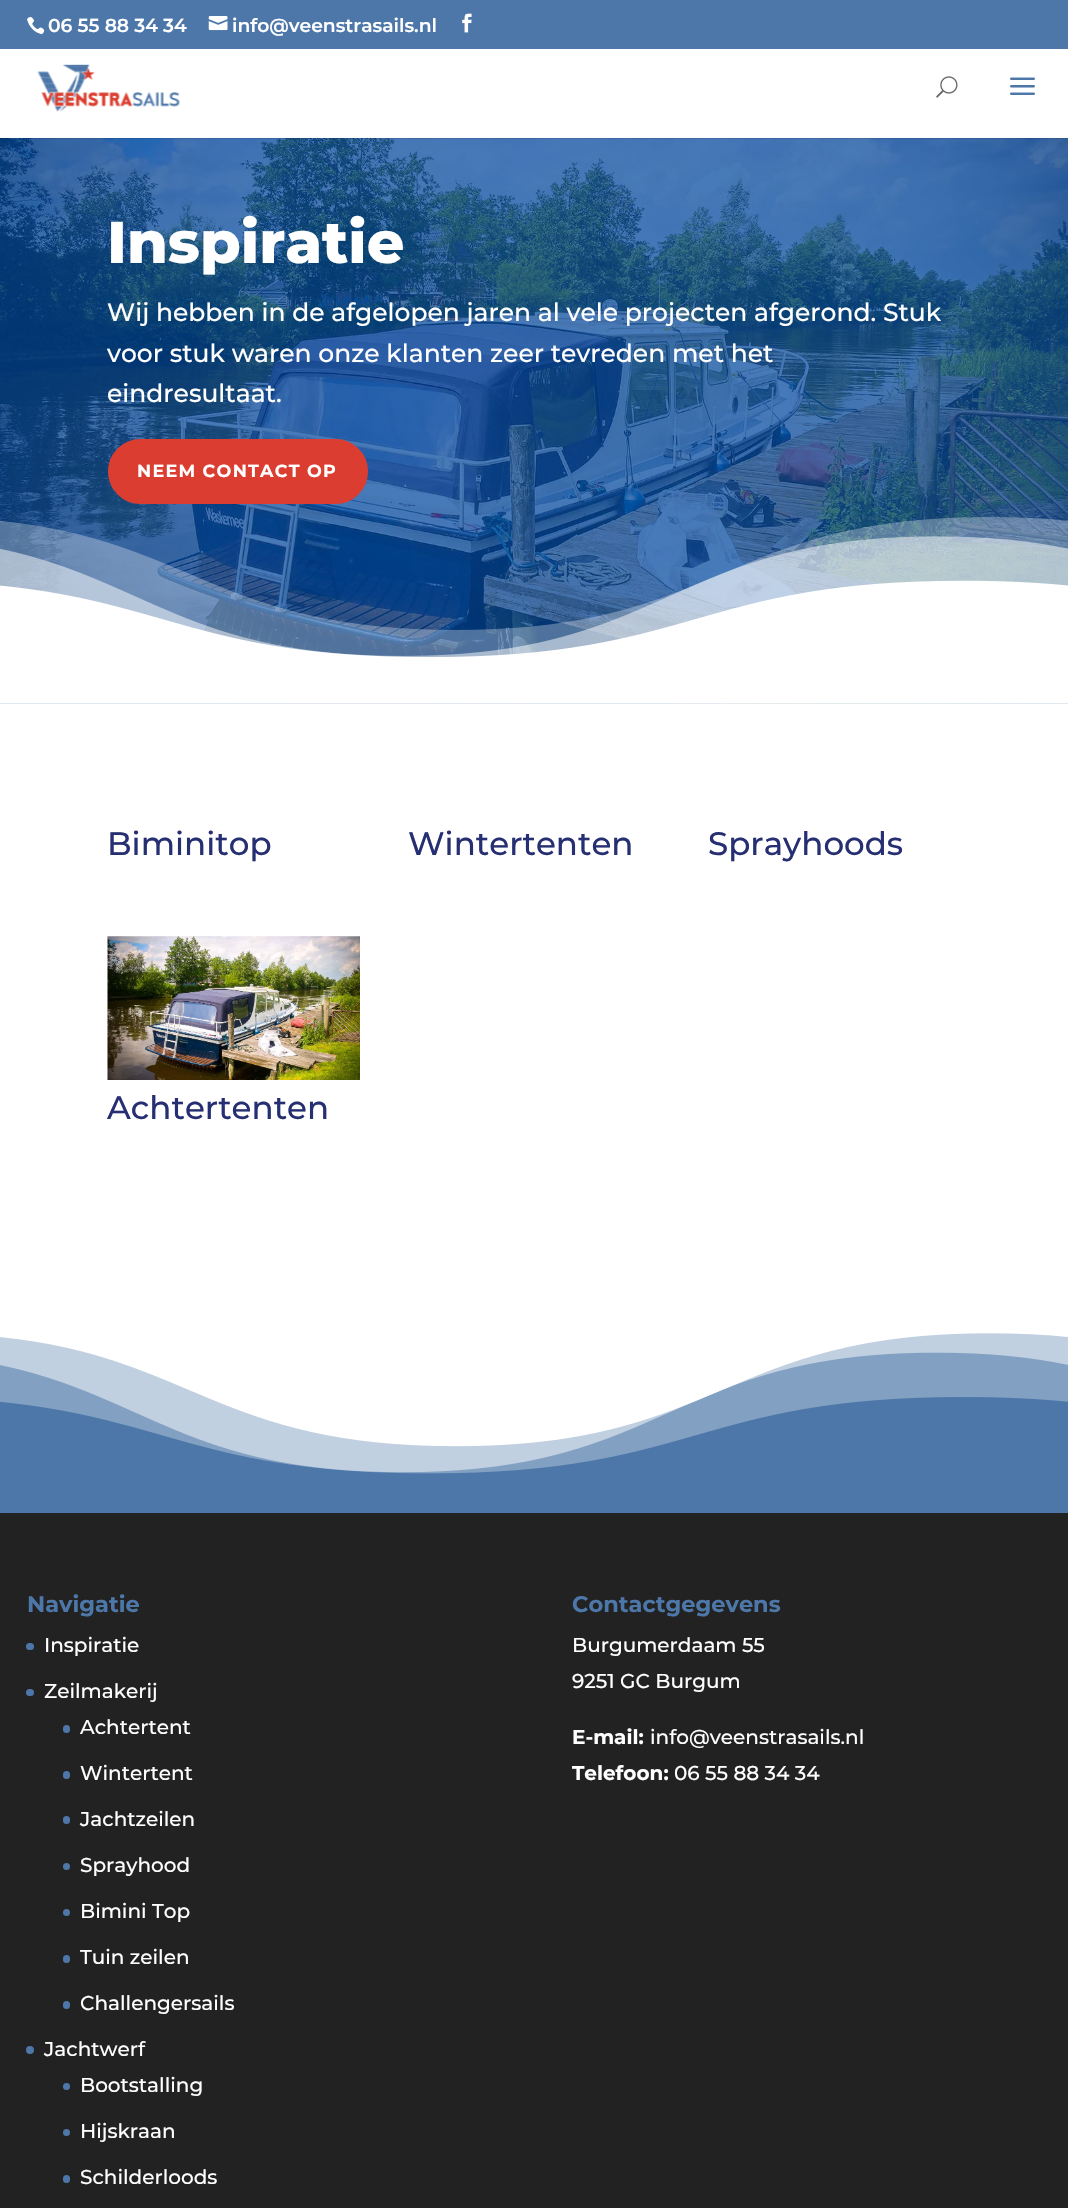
#include "include/core/SkBlurTypes.h"
#include "include/core/SkCanvas.h"
#include "include/core/SkData.h"
#include "include/core/SkFont.h"
#include "include/core/SkFontMgr.h"
#include "include/core/SkImage.h"
#include "include/core/SkMaskFilter.h"
#include "include/core/SkPaint.h"
#include "include/core/SkPathBuilder.h"
#include "include/core/SkTextBlob.h"
#include "include/effects/SkDashPathEffect.h"
#include "include/effects/SkGradientShader.h"
#include "include/utils/SkParsePath.h"

extern sk_sp<SkFontMgr> fontMgr;

void draw(SkCanvas* canvas) {
    SkPaint p;
    p.setAntiAlias(true);
    auto font = [&](const char* family, int weight, float size, bool italic = false) {
        SkFontStyle style(weight, SkFontStyle::kNormal_Width,
            italic ? SkFontStyle::kItalic_Slant : SkFontStyle::kUpright_Slant);
        SkFont result(fontMgr->matchFamilyStyle(family, style), size);
        result.setSubpixel(true);
        return result;
    };
    auto drawTracked = [&](const char* s, float x, float y, const SkFont& font, const SkPaint& ink, float letter, float word) {
        std::vector<SkGlyphID> glyphs(font.countText(s, strlen(s), SkTextEncoding::kUTF8));
        std::vector<float> xs(glyphs.size());
        font.textToGlyphs(s, strlen(s), SkTextEncoding::kUTF8, glyphs);
        font.getXPos(glyphs, xs, x);
        float extra = 0;
        for (size_t i = 0; i < glyphs.size(); i++) {
            xs[i] += extra;
            extra += letter + word * (glyphs[i] == font.unicharToGlyph(' '));
        }
        canvas->drawTextBlob(SkTextBlob::MakeFromPosHGlyphs(glyphs, xs, y, font), 0, 0, ink);
    };
    auto drawPhoto = [&](const char* path, float l, float t, float r, float b) {
        auto image = SkImages::DeferredFromEncodedData(SkData::MakeFromFileName(path));
        canvas->drawImageRect(image, SkRect::MakeLTRB(l, t, r, b), SkSamplingOptions());
    };
    canvas->clear(0xFF4C77A8);
    drawPhoto("media/1.png", 27, 17, 45, 35);
    auto font1 = font("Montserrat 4", 100, 18.75f);
    p.setColor(0xFFFFFFFF);
    canvas->drawString("06 55 88 34 34", 48, 32, font1, p);
    drawPhoto("media/2.png", 208, 16, 228, 31);
    canvas->drawString("info@veenstrasails.nl", 232, 32, font1, p);
    drawPhoto("media/3.png", 462, 13, 472, 33);
    drawPhoto("media/7.png", 0, 138, 1068, 704);
    p.setColor(0x1A000000);
    canvas->drawPath(SkPathBuilder().moveTo(0, 138).lineTo(0, 139).lineTo(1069, 139).lineTo(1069, 39).lineTo(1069, 138).close().detach(), p);
    p.setColor(0xFFFFFFFF);
    canvas->drawRect(SkRect::MakeLTRB(0, 49, 1068, 138), p);
    drawPhoto("media/4.png", 37, 64, 180, 112);
    drawPhoto("media/5.png", 936, 76, 958, 98);
    drawPhoto("media/6.png", 1010, 77, 1035, 95);
    auto font2 = font("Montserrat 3", 100, 58.75f);
    canvas->drawString("Inspiratie", 107, 263, font2, p);
    auto font3 = font("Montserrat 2", 100, 25);
    {
        const struct { const char* s; float x, y; } items[] = {
            {"Wij hebben in de afgelopen jaren al vele projecten afgerond. Stuk", 107, 321},
            {"voor stuk waren onze klanten zeer tevreden met het", 107, 362},
            {"eindresultaat.", 107, 402},
        };
        for (auto [s, x, y] : items) {
            canvas->drawString(s, x, y, font3, p);
        }
    }
    p.setColor(0xFFDB3E31);
    canvas->drawRoundRect(SkRect::MakeLTRB(114.5f, 445.5f, 361.5f, 497.5f), 26, 26, p);
    p.setStyle(SkPaint::kStroke_Style);
    p.setStrokeWidth(13);
    canvas->drawRoundRect(SkRect::MakeLTRB(114.5f, 445.5f, 361.5f, 497.5f), 26, 26, p);
    auto font4 = font("Montserrat", 100, 17.5f);
    p.setStyle(SkPaint::kFill_Style);
    p.setColor(0xFFFFFFFF);
    drawTracked("NEEM CONTACT OP", 137, 477, font4, p, 1.25f, 0);
    drawPhoto("media/8.png", 0, 517, 1068, 704);
    canvas->drawRect(SkRect::MakeLTRB(0, 704, 1068, 1333), p);
    auto font5 = font("Montserrat 2", 100, 32.5f);
    p.setColor(0xFF262F71);
    {
        const struct { const char* s; float x, y; } items[] = {
            {"Biminitop", 107, 855},
            {"Wintertenten", 408, 855},
            {"Sprayhoods", 708, 855},
        };
        for (auto [s, x, y] : items) {
            canvas->drawString(s, x, y, font5, p);
        }
    }
    drawPhoto("media/9.png", 107, 936, 360, 1080);
    canvas->drawString("Achtertenten", 107, 1119, font5, p);
    drawPhoto("media/10.png", 0, 1333, 1068, 1474);
    p.setColor(0xFF222222);
    canvas->drawRect(SkRect::MakeLTRB(0, 1513, 1068, 2208), p);
    auto font6 = font("Montserrat", 100, 22.5f);
    p.setColor(0xFF4C77A8);
    canvas->drawString("Navigatie", 27, 1612, font6, p);
    canvas->drawRoundRect(SkRect::MakeLTRB(26, 1643, 34, 1650), 3.5f, 3.5f, p);
    auto font7 = font("Montserrat 2", 100, 20);
    p.setColor(0xFFFFFFFF);
    canvas->drawString("Inspiratie", 44, 1652, font7, p);
    p.setColor(0xFF4C77A8);
    canvas->drawRoundRect(SkRect::MakeLTRB(26, 1689, 34, 1696), 3.5f, 3.5f, p);
    p.setColor(0xFFFFFFFF);
    canvas->drawString("Zeilmakerij", 44, 1698, font7, p);
    p.setColor(0xFF4C77A8);
    canvas->drawRoundRect(SkRect::MakeLTRB(63, 1725, 70, 1733), 3.5f, 3.5f, p);
    p.setColor(0xFFFFFFFF);
    canvas->drawString("Achtertent", 80, 1734, font7, p);
    p.setColor(0xFF4C77A8);
    canvas->drawRoundRect(SkRect::MakeLTRB(63, 1771, 70, 1779), 3.5f, 3.5f, p);
    p.setColor(0xFFFFFFFF);
    canvas->drawString("Wintertent", 80, 1780, font7, p);
    p.setColor(0xFF4C77A8);
    canvas->drawRoundRect(SkRect::MakeLTRB(63, 1816, 70, 1824), 3.5f, 3.5f, p);
    p.setColor(0xFFFFFFFF);
    canvas->drawString("Jachtzeilen", 80, 1826, font7, p);
    p.setColor(0xFF4C77A8);
    canvas->drawCircle(66.5f, 1866.5f, 3.5f, p);
    p.setColor(0xFFFFFFFF);
    canvas->drawString("Sprayhood", 80, 1872, font7, p);
    p.setColor(0xFF4C77A8);
    canvas->drawCircle(66.5f, 1912.5f, 3.5f, p);
    p.setColor(0xFFFFFFFF);
    canvas->drawString("Bimini Top", 80, 1918, font7, p);
    p.setColor(0xFF4C77A8);
    canvas->drawRoundRect(SkRect::MakeLTRB(63, 1955, 70, 1963), 3.5f, 3.5f, p);
    p.setColor(0xFFFFFFFF);
    canvas->drawString("Tuin zeilen", 80, 1964, font7, p);
    p.setColor(0xFF4C77A8);
    canvas->drawRoundRect(SkRect::MakeLTRB(63, 2001, 70, 2009), 3.5f, 3.5f, p);
    p.setColor(0xFFFFFFFF);
    canvas->drawString("Challengersails", 80, 2010, font7, p);
    p.setColor(0xFF4C77A8);
    canvas->drawCircle(30, 2050, 4, p);
    p.setColor(0xFFFFFFFF);
    canvas->drawString("Jachtwerf", 44, 2056, font7, p);
    p.setColor(0xFF4C77A8);
    canvas->drawCircle(66.5f, 2086.5f, 3.5f, p);
    p.setColor(0xFFFFFFFF);
    canvas->drawString("Bootstalling", 80, 2092, font7, p);
    p.setColor(0xFF4C77A8);
    canvas->drawCircle(66.5f, 2132.5f, 3.5f, p);
    p.setColor(0xFFFFFFFF);
    canvas->drawString("Hijskraan", 80, 2138, font7, p);
    p.setColor(0xFF4C77A8);
    canvas->drawRoundRect(SkRect::MakeLTRB(63, 2175, 70, 2183), 3.5f, 3.5f, p);
    p.setColor(0xFFFFFFFF);
    canvas->drawString("Schilderloods", 80, 2184, font7, p);
    p.setColor(0xFF4C77A8);
    canvas->drawString("Contactgegevens", 572, 1612, font6, p);
    p.setColor(0xFFFFFFFF);
    canvas->drawString("Burgumerdaam 55", 572, 1652, font7, p);
    canvas->drawString("9251 GC Burgum", 572, 1688, font7, p);
    auto font8 = font("Montserrat", 100, 20);
    canvas->drawString("E-mail:", 572, 1744, font8, p);
    canvas->drawString("info@veenstrasails.nl", 650, 1744, font7, p);
    canvas->drawString("Telefoon:", 572, 1780, font8, p);
    canvas->drawString("06 55 88 34 34", 674, 1780, font7, p);
}
